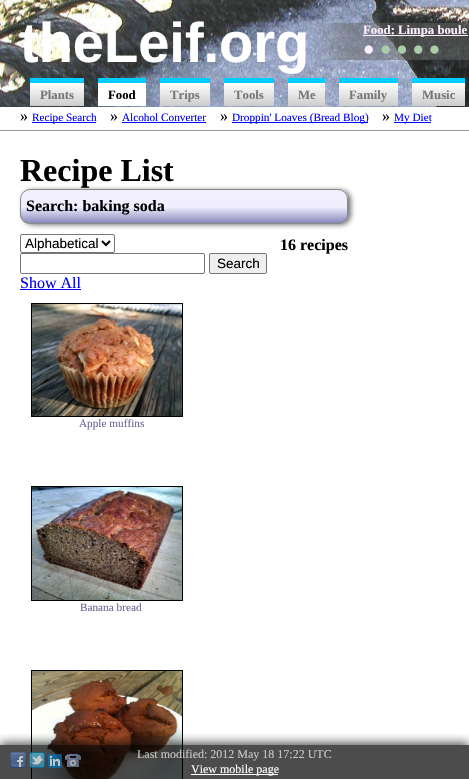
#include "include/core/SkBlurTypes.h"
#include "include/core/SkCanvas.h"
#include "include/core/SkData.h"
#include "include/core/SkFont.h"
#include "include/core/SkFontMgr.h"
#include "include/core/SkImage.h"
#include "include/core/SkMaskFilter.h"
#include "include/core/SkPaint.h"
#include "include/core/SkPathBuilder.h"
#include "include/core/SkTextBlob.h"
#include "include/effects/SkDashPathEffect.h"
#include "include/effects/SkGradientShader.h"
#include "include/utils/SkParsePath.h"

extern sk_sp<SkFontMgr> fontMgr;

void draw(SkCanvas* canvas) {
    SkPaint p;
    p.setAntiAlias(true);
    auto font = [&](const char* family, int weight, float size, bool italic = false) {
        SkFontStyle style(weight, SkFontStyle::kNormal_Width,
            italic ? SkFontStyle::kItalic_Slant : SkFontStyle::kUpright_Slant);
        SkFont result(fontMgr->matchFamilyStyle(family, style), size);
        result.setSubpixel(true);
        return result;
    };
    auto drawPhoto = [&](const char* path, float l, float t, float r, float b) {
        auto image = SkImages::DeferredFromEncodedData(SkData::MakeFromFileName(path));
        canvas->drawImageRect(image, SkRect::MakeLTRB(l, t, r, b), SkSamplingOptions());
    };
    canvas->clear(0xFFFFFFFF);
    drawPhoto("media/1.png", 0, 0, 469, 107);
    auto font1 = font("Liberation Sans", 700, 56);
    p.setColor(0xFFFFFFFF);
    canvas->drawString("theLeif.org", 20, 62, font1, p);
    p.setColor(0xFFFFEEFF);
    canvas->drawRect(SkRect::MakeLTRB(363, 35, 468, 36), p);
    auto font2 = font("Liberation Serif", 700, 12.75f);
    canvas->drawString("Food: Limpa boule", 363, 34, font2, p);
    auto font3 = font("Liberation Serif", 700, 19);
    canvas->drawString("●", 363, 55, font3, p);
    p.setColor(0xFFAACCAA);
    canvas->drawString("● ● ● ●", 380, 55, font3, p);
    {
        const SkColor colors[] = {0xFFFFFFFF, 0xFFCCCCCC};
        const float stops[] = {0, 1};
        const SkPoint ends[] = {{30, 83}, {30, 106}};
        p.setShader(SkGradientShader::MakeLinear(ends, colors, stops, 2, SkTileMode::kClamp));
        p.setAlpha(255);
    }
    canvas->drawRect(SkRect::MakeLTRB(30, 83, 84, 106), p);
    p.setShader(nullptr);
    p.setColor(0xFF777777);
    canvas->drawString("Plants", 40, 99, font2, p);
    p.setColor(0xFF00CCFF);
    canvas->drawRect(SkRect::MakeLTRB(30, 78, 84, 83), p);
    p.setColor(0xFFFFFFFF);
    canvas->drawRect(SkRect::MakeLTRB(98, 83, 146, 106), p);
    p.setColor(0xFF000000);
    canvas->drawString("Food", 108, 99, font2, p);
    p.setColor(0xFF00CCFF);
    canvas->drawRect(SkRect::MakeLTRB(98, 78, 146, 83), p);
    {
        const SkColor colors[] = {0xFFFFFFFF, 0xFFCCCCCC};
        const float stops[] = {0, 1};
        const SkPoint ends[] = {{160, 83}, {160, 106}};
        p.setShader(SkGradientShader::MakeLinear(ends, colors, stops, 2, SkTileMode::kClamp));
        p.setAlpha(255);
    }
    canvas->drawRect(SkRect::MakeLTRB(160, 83, 210, 106), p);
    p.setShader(nullptr);
    p.setColor(0xFF777777);
    canvas->drawString("Trips", 170, 99, font2, p);
    p.setColor(0xFF00CCFF);
    canvas->drawRect(SkRect::MakeLTRB(160, 78, 210, 83), p);
    {
        const SkColor colors[] = {0xFFFFFFFF, 0xFFCCCCCC};
        const float stops[] = {0, 1};
        const SkPoint ends[] = {{224, 83}, {224, 106}};
        p.setShader(SkGradientShader::MakeLinear(ends, colors, stops, 2, SkTileMode::kClamp));
        p.setAlpha(255);
    }
    canvas->drawRect(SkRect::MakeLTRB(224, 83, 274, 106), p);
    p.setShader(nullptr);
    p.setColor(0xFF777777);
    canvas->drawString("Tools", 234, 99, font2, p);
    p.setColor(0xFF00CCFF);
    canvas->drawRect(SkRect::MakeLTRB(224, 78, 274, 83), p);
    {
        const SkColor colors[] = {0xFFFFFFFF, 0xFFCCCCCC};
        const float stops[] = {0, 1};
        const SkPoint ends[] = {{288, 83}, {288, 106}};
        p.setShader(SkGradientShader::MakeLinear(ends, colors, stops, 2, SkTileMode::kClamp));
        p.setAlpha(255);
    }
    canvas->drawRect(SkRect::MakeLTRB(288, 83, 325, 106), p);
    p.setShader(nullptr);
    p.setColor(0xFF777777);
    canvas->drawString("Me", 298, 99, font2, p);
    p.setColor(0xFF00CCFF);
    canvas->drawRect(SkRect::MakeLTRB(288, 78, 325, 83), p);
    {
        const SkColor colors[] = {0xFFFFFFFF, 0xFFCCCCCC};
        const float stops[] = {0, 1};
        const SkPoint ends[] = {{339, 83}, {339, 106}};
        p.setShader(SkGradientShader::MakeLinear(ends, colors, stops, 2, SkTileMode::kClamp));
        p.setAlpha(255);
    }
    canvas->drawRect(SkRect::MakeLTRB(339, 83, 398, 106), p);
    p.setShader(nullptr);
    p.setColor(0xFF777777);
    canvas->drawString("Family", 349, 99, font2, p);
    p.setColor(0xFF00CCFF);
    canvas->drawRect(SkRect::MakeLTRB(339, 78, 398, 83), p);
    {
        const SkColor colors[] = {0xFFFFFFFF, 0xFFCCCCCC};
        const float stops[] = {0, 1};
        const SkPoint ends[] = {{412, 83}, {412, 106}};
        p.setShader(SkGradientShader::MakeLinear(ends, colors, stops, 2, SkTileMode::kClamp));
        p.setAlpha(255);
    }
    canvas->drawRect(SkRect::MakeLTRB(412, 83, 465, 106), p);
    p.setShader(nullptr);
    p.setColor(0xFF777777);
    canvas->drawString("Music", 422, 99, font2, p);
    p.setColor(0xFF00CCFF);
    canvas->drawRect(SkRect::MakeLTRB(412, 78, 465, 83), p);
    p.setColor(0xFF999999);
    canvas->drawRect(SkRect::MakeLTRB(0, 130, 469, 131), p);
    auto font4 = font("Liberation Serif", 400, 16);
    p.setColor(0xFF000000);
    canvas->drawString("»", 20, 121, font4, p);
    p.setColor(0xFF0000FF);
    canvas->drawRect(SkRect::MakeLTRB(32, 122, 96, 123), p);
    auto font5 = font("Liberation Serif", 400, 11.25f);
    canvas->drawString("Recipe Search", 32, 121, font5, p);
    p.setColor(0xFF000000);
    canvas->drawString("»", 110, 121, font4, p);
    p.setColor(0xFF0000FF);
    canvas->drawString("Alcohol Converter", 122, 121, font5, p);
    canvas->drawRect(SkRect::MakeLTRB(122, 122, 206, 123), p);
    p.setColor(0xFF000000);
    canvas->drawString("»", 220, 121, font4, p);
    p.setColor(0xFF0000FF);
    canvas->drawRect(SkRect::MakeLTRB(232, 122, 368, 123), p);
    canvas->drawString("Droppin' Loaves (Bread Blog)", 232, 121, font5, p);
    p.setColor(0xFF000000);
    canvas->drawString("»", 382, 121, font4, p);
    p.setColor(0xFF0000FF);
    canvas->drawRect(SkRect::MakeLTRB(394, 122, 431, 123), p);
    canvas->drawString("My Diet", 394, 121, font5, p);
    p.setColor(0xFF777777);
    p.setMaskFilter(SkMaskFilter::MakeBlur(kNormal_SkBlurStyle, 2.5f));
    canvas->drawRoundRect(SkRect::MakeLTRB(23, 190, 351, 225), 10, 10, p);
    p.setMaskFilter(nullptr);
    auto font6 = font("Liberation Serif", 700, 32);
    p.setColor(0xFF000000);
    canvas->drawString("Recipe List", 20, 181, font6, p);
    canvas->save();
    canvas->clipPath(SkPathBuilder().moveTo(30, 189).lineTo(338, 189).cubicTo(343.5f, 189, 348, 193.5f, 348, 199).lineTo(348, 214).cubicTo(348, 219.5f, 343.5f, 224, 338, 224).lineTo(30, 224).cubicTo(24.5f, 224, 20, 219.5f, 20, 214).lineTo(20, 199).cubicTo(20, 193.5f, 24.5f, 189, 30, 189).close().detach(), true);
    {
        const SkColor colors[] = {0xFFF0EEFF, 0xFF8888BB};
        const float stops[] = {0, 1};
        const SkPoint ends[] = {{21, 207}, {21, 223}};
        p.setShader(SkGradientShader::MakeLinear(ends, colors, stops, 2, SkTileMode::kClamp));
        p.setAlpha(255);
    }
    canvas->drawRect(SkRect::MakeLTRB(20, 190, 348, 223), p);
    canvas->restore();
    p.setStyle(SkPaint::kStroke_Style);
    p.setStrokeWidth(1);
    p.setShader(nullptr);
    p.setColor(0xFF888888);
    canvas->drawRoundRect(SkRect::MakeLTRB(20.5f, 189.5f, 347.5f, 223.5f), 9.5f, 9.5f, p);
    auto font7 = font("Liberation Serif", 700, 16);
    p.setStyle(SkPaint::kFill_Style);
    p.setColor(0xFF000000);
    canvas->drawString("Search: baking soda", 26, 211, font7, p);
    p.setStyle(SkPaint::kStroke_Style);
    p.setColor(0xFF767676);
    canvas->drawRoundRect(SkRect::MakeLTRB(20.5f, 234.5f, 114.5f, 252.5f), 1.5f, 1.5f, p);
    p.setStrokeWidth(2);
    p.setColor(0xFF000000);
    canvas->drawPath(SkPathBuilder().moveTo(102, 241).lineTo(106, 245).lineTo(110, 241).detach(), p);
    auto font8 = font("Liberation Sans", 400, 13.5f);
    p.setStyle(SkPaint::kFill_Style);
    canvas->drawString("Alphabetical", 25, 248, font8, p);
    p.setStyle(SkPaint::kStroke_Style);
    p.setStrokeWidth(1);
    p.setColor(0xFF767676);
    canvas->drawRoundRect(SkRect::MakeLTRB(20.5f, 253.5f, 204.5f, 273.5f), 1.5f, 1.5f, p);
    p.setStyle(SkPaint::kFill_Style);
    p.setColor(0xFFEFEFEF);
    canvas->drawRoundRect(SkRect::MakeLTRB(209.5f, 253.5f, 266.5f, 273.5f), 1.5f, 1.5f, p);
    p.setStyle(SkPaint::kStroke_Style);
    p.setColor(0xFF767676);
    canvas->drawRoundRect(SkRect::MakeLTRB(209.5f, 253.5f, 266.5f, 273.5f), 1.5f, 1.5f, p);
    p.setStyle(SkPaint::kFill_Style);
    p.setColor(0xFF000000);
    canvas->drawString("Search", 217, 268, font8, p);
    p.setColor(0xFF0000EE);
    canvas->drawString("Show All", 20, 288, font4, p);
    canvas->drawRect(SkRect::MakeLTRB(20, 289, 81, 290), p);
    p.setColor(0xFF000000);
    canvas->drawString("16 recipes", 280, 250, font7, p);
    p.setStyle(SkPaint::kStroke_Style);
    canvas->drawRect(SkRect::MakeLTRB(31.5f, 303.5f, 182.5f, 416.5f), p);
    drawPhoto("media/2.png", 32, 304, 182, 416);
    p.setStyle(SkPaint::kFill_Style);
    p.setColor(0xFF666699);
    canvas->drawString("Apple muffins", 79, 427, font5, p);
    p.setStyle(SkPaint::kStroke_Style);
    p.setColor(0xFF000000);
    canvas->drawRect(SkRect::MakeLTRB(31.5f, 486.5f, 182.5f, 600.5f), p);
    drawPhoto("media/3.png", 32, 487, 182, 600);
    p.setStyle(SkPaint::kFill_Style);
    p.setColor(0xFF666699);
    canvas->drawString("Banana bread", 80, 611, font5, p);
    p.setStyle(SkPaint::kStroke_Style);
    p.setColor(0xFF000000);
    canvas->drawRect(SkRect::MakeLTRB(31.5f, 670.5f, 182.5f, 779.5f), p);
    drawPhoto("media/4.png", 32, 671, 182, 779);
    canvas->save();
    canvas->clipRect(SkRect::MakeLTRB(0, 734, 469, 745));
    p.setStyle(SkPaint::kFill_Style);
    p.setColor(0xB3000000);
    p.setMaskFilter(SkMaskFilter::MakeBlur(kNormal_SkBlurStyle, 5));
    canvas->drawRect(SkRect::MakeLTRB(0, 743, 469, 777), p);
    p.setMaskFilter(nullptr);
    canvas->restore();
    canvas->drawRect(SkRect::MakeLTRB(0, 745, 469, 779), p);
    drawPhoto("media/5.png", 10, 752, 26, 768);
    drawPhoto("media/6.png", 29, 752, 45, 768);
    drawPhoto("media/7.png", 48, 754, 62, 768);
    drawPhoto("media/8.png", 65, 754, 81, 767);
    auto font9 = font("Liberation Serif", 400, 12);
    p.setColor(0xFFC8C8C8);
    canvas->drawString("Last modified: 2012 May 18 17:22 UTC", 137, 758, font9, p);
    p.setColor(0xFFFFFFFF);
    canvas->drawRect(SkRect::MakeLTRB(191, 774, 278, 775), p);
    canvas->drawString("View mobile page", 191, 773, font9, p);
}
